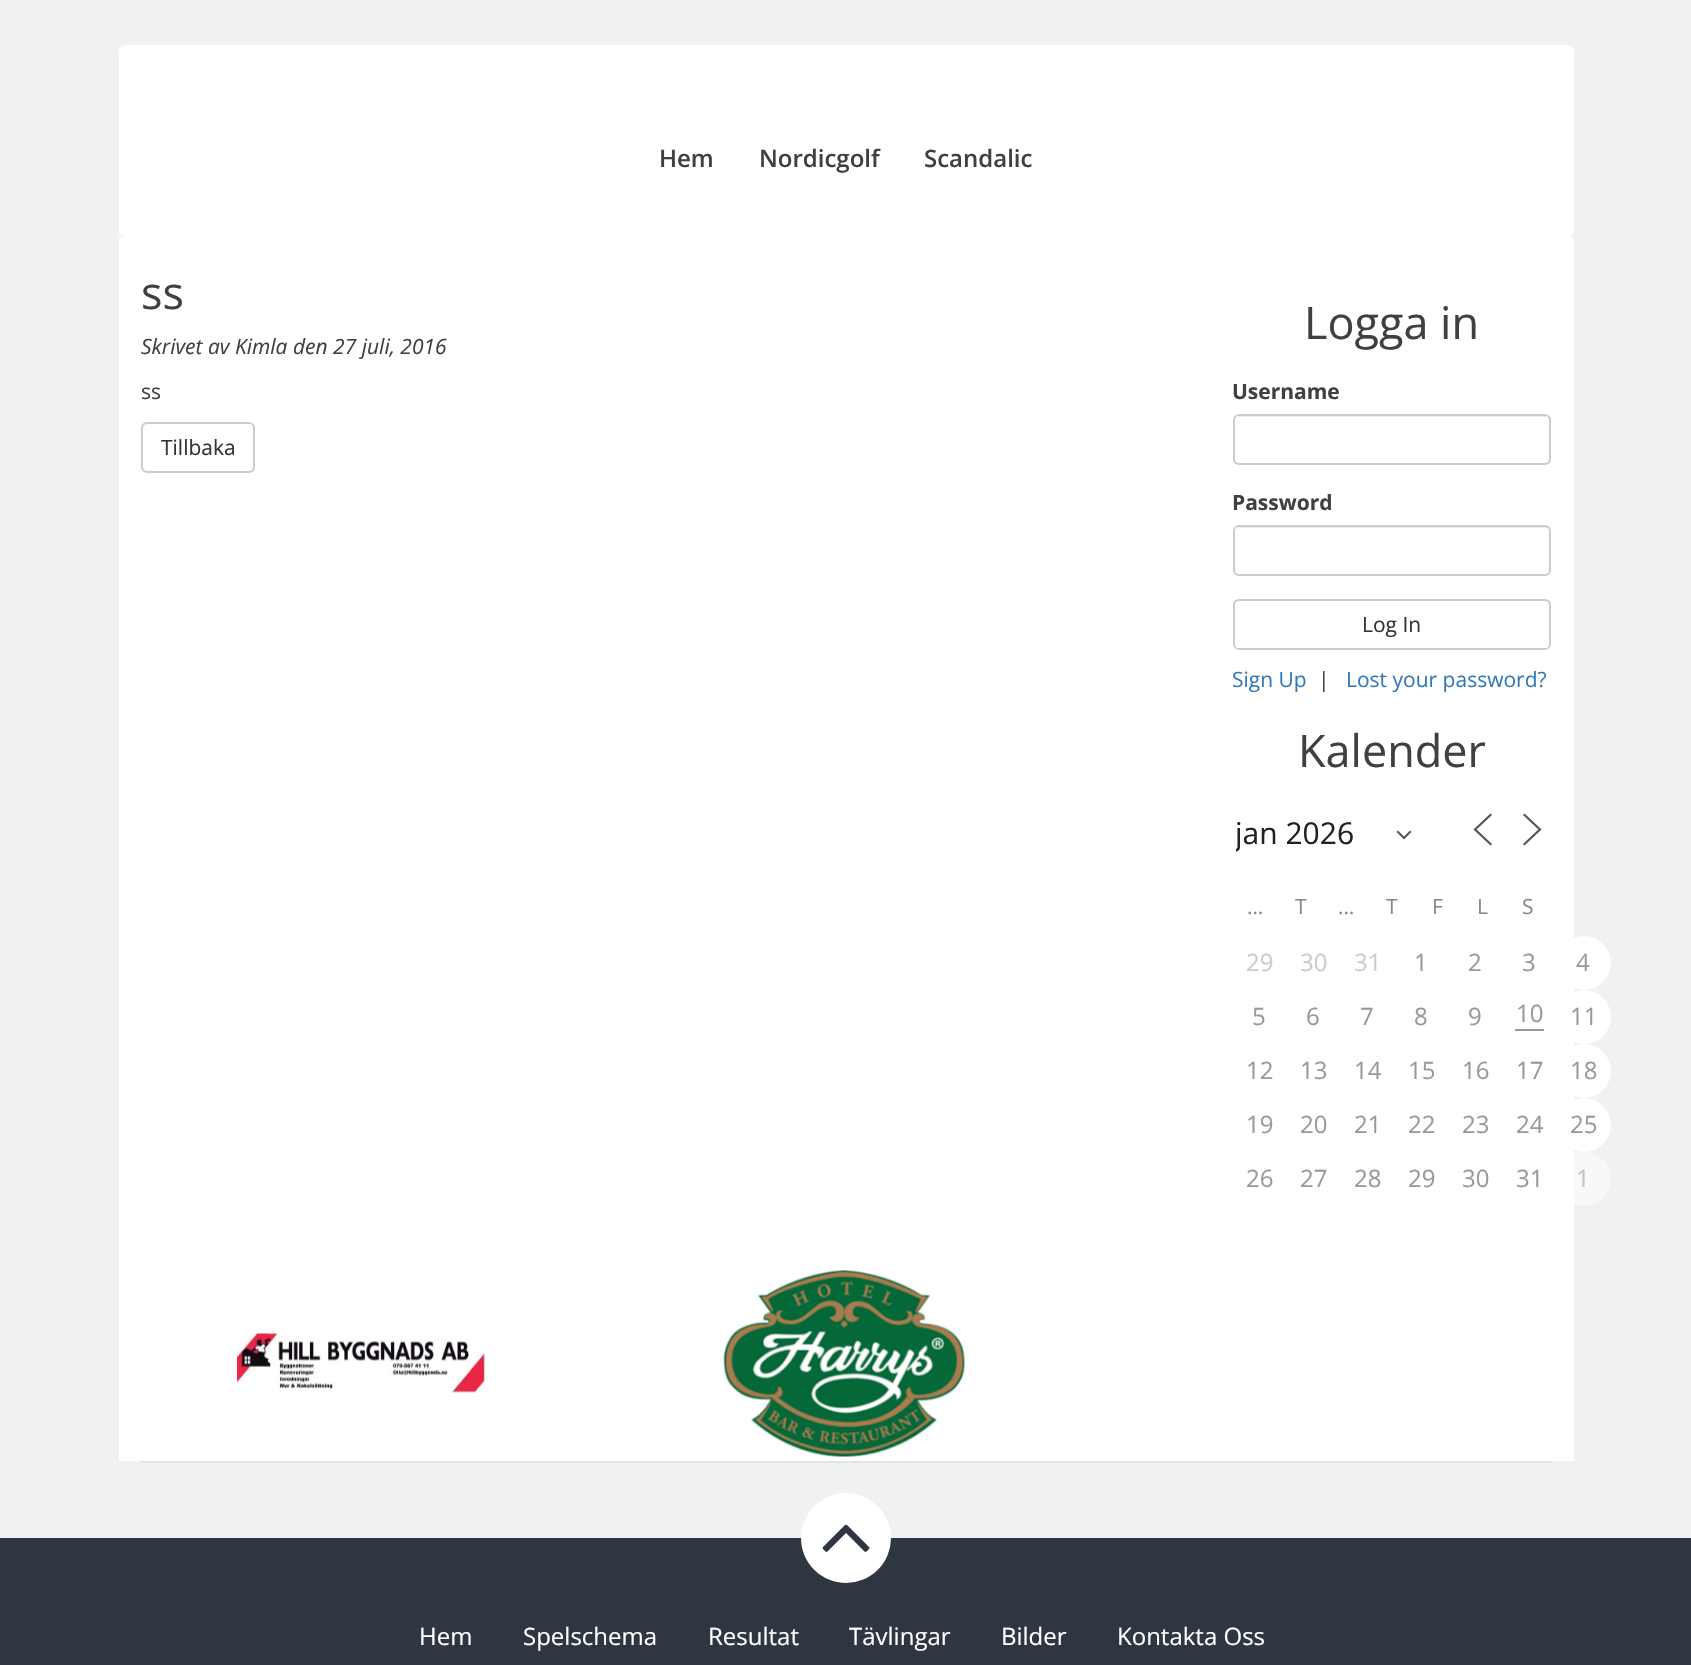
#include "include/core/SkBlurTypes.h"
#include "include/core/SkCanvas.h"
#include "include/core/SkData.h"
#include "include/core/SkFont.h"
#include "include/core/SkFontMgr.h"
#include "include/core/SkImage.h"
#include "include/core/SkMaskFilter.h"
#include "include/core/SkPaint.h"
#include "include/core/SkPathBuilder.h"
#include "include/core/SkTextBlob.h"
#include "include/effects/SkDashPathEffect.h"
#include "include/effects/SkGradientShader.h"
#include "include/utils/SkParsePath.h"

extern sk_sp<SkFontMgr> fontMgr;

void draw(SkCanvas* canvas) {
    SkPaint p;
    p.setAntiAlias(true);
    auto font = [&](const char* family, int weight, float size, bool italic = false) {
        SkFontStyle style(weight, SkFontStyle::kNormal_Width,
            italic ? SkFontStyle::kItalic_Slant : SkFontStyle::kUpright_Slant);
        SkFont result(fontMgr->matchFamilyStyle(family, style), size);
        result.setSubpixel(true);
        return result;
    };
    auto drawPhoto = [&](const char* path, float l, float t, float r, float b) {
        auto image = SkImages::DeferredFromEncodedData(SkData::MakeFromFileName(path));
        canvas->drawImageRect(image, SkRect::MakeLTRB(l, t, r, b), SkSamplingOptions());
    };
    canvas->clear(0xFFF0F1F2);
    p.setColor(0xFFFFFFFF);
    canvas->drawRoundRect(SkRect::MakeLTRB(119, 45, 1574, 237), 6, 6, p);
    auto font1 = font("Open Sans", 600, 24);
    p.setColor(0xFF404040);
    {
        const struct { const char* s; float x, y; } items[] = {
            {"Hem", 659, 167},
            {"Nordicgolf", 759, 167},
            {"Scandalic", 924, 167},
        };
        for (auto [s, x, y] : items) {
            canvas->drawString(s, x, y, font1, p);
        }
    }
    p.setColor(0xFFFFFFFF);
    canvas->drawRect(SkRect::MakeLTRB(119, 237, 1574, 1461), p);
    auto font2 = font("Open Sans", 400, 45);
    p.setColor(0xFF404040);
    canvas->drawString("ss", 141, 309, font2, p);
    auto font3 = font("Open Sans", 400, 21, true);
    canvas->drawString("Skrivet av Kimla den 27 juli, 2016", 141, 354, font3, p);
    auto font4 = font("Open Sans", 400, 21);
    canvas->drawString("ss", 141, 399, font4, p);
    p.setStyle(SkPaint::kStroke_Style);
    p.setStrokeWidth(2);
    p.setColor(0xFFCCCCCC);
    canvas->drawRoundRect(SkRect::MakeLTRB(142, 423, 254, 472), 5, 5, p);
    p.setStyle(SkPaint::kFill_Style);
    p.setColor(0xFF333333);
    canvas->drawString("Tillbaka", 161, 455, font4, p);
    p.setColor(0xFF404040);
    canvas->drawString("Logga in", 1304, 339, font2, p);
    auto font5 = font("Open Sans", 700, 21);
    canvas->drawString("Username", 1232, 399, font5, p);
    p.setColor(0xFFECECEC);
    canvas->drawPath(SkPathBuilder().moveTo(1239, 417).lineTo(1545, 417).cubicTo(1547, 417, 1550, 419, 1550, 422).cubicTo(1550, 419, 1548, 416, 1545, 416).lineTo(1240, 416).lineTo(1238, 417).lineTo(1236, 418).close().detach(), p);
    p.setStyle(SkPaint::kStroke_Style);
    p.setColor(0xFFCCCCCC);
    canvas->drawRoundRect(SkRect::MakeLTRB(1234, 415, 1550, 464), 5, 5, p);
    p.setStyle(SkPaint::kFill_Style);
    p.setColor(0xFF404040);
    canvas->drawString("Password", 1232, 510, font5, p);
    p.setColor(0xFFECECEC);
    canvas->drawPath(SkPathBuilder().moveTo(1239, 528).lineTo(1545, 528).cubicTo(1547, 528, 1550, 530, 1550, 532).cubicTo(1550, 529, 1548, 527, 1545, 527).lineTo(1240, 527).cubicTo(1238, 527, 1237, 528, 1236, 529).close().detach(), p);
    p.setStyle(SkPaint::kStroke_Style);
    p.setColor(0xFFCCCCCC);
    canvas->drawRoundRect(SkRect::MakeLTRB(1234, 526, 1550, 575), 5, 5, p);
    canvas->drawRoundRect(SkRect::MakeLTRB(1234, 600, 1550, 649), 5, 5, p);
    p.setStyle(SkPaint::kFill_Style);
    p.setColor(0xFF333333);
    canvas->drawString("Log In", 1362, 632, font4, p);
    p.setColor(0xFF337AB7);
    canvas->drawString("Sign Up", 1232, 687, font4, p);
    p.setColor(0xFF404040);
    canvas->drawString("|", 1318, 687, font4, p);
    p.setColor(0xFF337AB7);
    canvas->drawString("Lost your password?", 1346, 687, font4, p);
    p.setColor(0xFF404040);
    canvas->drawString("Kalender", 1298, 767, font2, p);
    p.setStyle(SkPaint::kStroke_Style);
    p.setStrokeCap(SkPaint::kSquare_Cap);
    p.setColor(0xFF555555);
    canvas->drawPath(SkPathBuilder().moveTo(1398, 832).lineTo(1404, 838).lineTo(1410, 832).detach(), p);
    canvas->save();
    canvas->clipRect(SkRect::MakeLTRB(1236, 813, 1412, 854));
    auto font6 = font("Open Sans", 400, 30);
    p.setStyle(SkPaint::kFill_Style);
    p.setColor(0xFF212121);
    canvas->drawString("jan 2026", 1235, 844, font6, p);
    canvas->restore();
    p.setStyle(SkPaint::kStroke_Style);
    p.setStrokeWidth(2.2f);
    p.setColor(0xFF555555);
    canvas->drawPath(SkPathBuilder().moveTo(1490.5f, 844).lineTo(1475, 829.5f).lineTo(1490.5f, 815).detach(), p);
    canvas->drawPath(SkPathBuilder().moveTo(1524.5f, 844).lineTo(1540, 829.5f).lineTo(1524.5f, 815).detach(), p);
    p.setStyle(SkPaint::kFill_Style);
    p.setColor(0xFF888888);
    {
        const struct { const char* s; float x, y; } items[] = {
            {"…", 1247, 914},
            {"T", 1295, 914},
            {"…", 1338, 914},
            {"T", 1386, 914},
            {"F", 1432, 914},
            {"L", 1477, 914},
            {"S", 1522, 914},
        };
        for (auto [s, x, y] : items) {
            canvas->drawString(s, x, y, font4, p);
        }
    }
    auto font7 = font("Open Sans", 400, 24);
    p.setColor(0xFFCCCCCC);
    {
        const struct { const char* s; float x, y; } items[] = {
            {"29", 1246, 971},
            {"30", 1300, 971},
            {"31", 1354, 971},
        };
        for (auto [s, x, y] : items) {
            canvas->drawString(s, x, y, font7, p);
        }
    }
    p.setColor(0xFF999999);
    {
        const struct { const char* s; float x, y; } items[] = {
            {"1", 1414, 971},
            {"2", 1468, 971},
            {"3", 1522, 971},
        };
        for (auto [s, x, y] : items) {
            canvas->drawString(s, x, y, font7, p);
        }
    }
    p.setColor(0xFFFFFFFF);
    canvas->drawCircle(1584, 963, 27, p);
    p.setColor(0xFF999999);
    {
        const struct { const char* s; float x, y; } items[] = {
            {"4", 1576, 971},
            {"5", 1252, 1025},
            {"6", 1306, 1025},
            {"7", 1360, 1025},
            {"8", 1414, 1025},
            {"9", 1468, 1025},
            {"10", 1516, 1022},
        };
        for (auto [s, x, y] : items) {
            canvas->drawString(s, x, y, font7, p);
        }
    }
    canvas->drawRect(SkRect::MakeLTRB(1515, 1029, 1544, 1031), p);
    p.setColor(0xFFFFFFFF);
    canvas->drawCircle(1584, 1017, 27, p);
    p.setColor(0xFF999999);
    {
        const struct { const char* s; float x, y; } items[] = {
            {"11", 1570, 1025},
            {"12", 1246, 1079},
            {"13", 1300, 1079},
            {"14", 1354, 1079},
            {"15", 1408, 1079},
            {"16", 1462, 1079},
            {"17", 1516, 1079},
        };
        for (auto [s, x, y] : items) {
            canvas->drawString(s, x, y, font7, p);
        }
    }
    p.setColor(0xFFFFFFFF);
    canvas->drawCircle(1584, 1071, 27, p);
    p.setColor(0xFF999999);
    {
        const struct { const char* s; float x, y; } items[] = {
            {"18", 1570, 1079},
            {"19", 1246, 1133},
            {"20", 1300, 1133},
            {"21", 1354, 1133},
            {"22", 1408, 1133},
            {"23", 1462, 1133},
            {"24", 1516, 1133},
        };
        for (auto [s, x, y] : items) {
            canvas->drawString(s, x, y, font7, p);
        }
    }
    p.setColor(0xFFFFFFFF);
    canvas->drawCircle(1584, 1125, 27, p);
    p.setColor(0xFF999999);
    {
        const struct { const char* s; float x, y; } items[] = {
            {"25", 1570, 1133},
            {"26", 1246, 1187},
            {"27", 1300, 1187},
            {"28", 1354, 1187},
            {"29", 1408, 1187},
            {"30", 1462, 1187},
            {"31", 1516, 1187},
        };
        for (auto [s, x, y] : items) {
            canvas->drawString(s, x, y, font7, p);
        }
    }
    p.setColor(0x80FFFFFF);
    canvas->drawCircle(1584, 1179, 27, p);
    p.setColor(0xFFC5C5C6);
    canvas->drawString("1", 1576, 1187, font7, p);
    p.setColor(0xFFE3E3E3);
    canvas->drawRect(SkRect::MakeLTRB(141, 1461, 1551, 1463), p);
    drawPhoto("media/1.png", 237, 1333, 485, 1393);
    drawPhoto("media/2.png", 723, 1270, 965, 1457);
    p.setColor(0xFF2E3641);
    canvas->drawRect(SkRect::MakeLTRB(0, 1538, 1691, 1665), p);
    p.setColor(0xFFFFFFFF);
    canvas->drawCircle(846, 1538, 45, p);
    drawPhoto("media/3.png", 822, 1524, 870, 1552);
    {
        const struct { const char* s; float x, y; } items[] = {
            {"Hem", 419, 1645},
            {"Spelschema", 523, 1645},
            {"Resultat", 708, 1645},
            {"Tävlingar", 849, 1645},
            {"Bilder", 1001, 1645},
            {"Kontakta Oss", 1117, 1645},
        };
        for (auto [s, x, y] : items) {
            canvas->drawString(s, x, y, font7, p);
        }
    }
}
